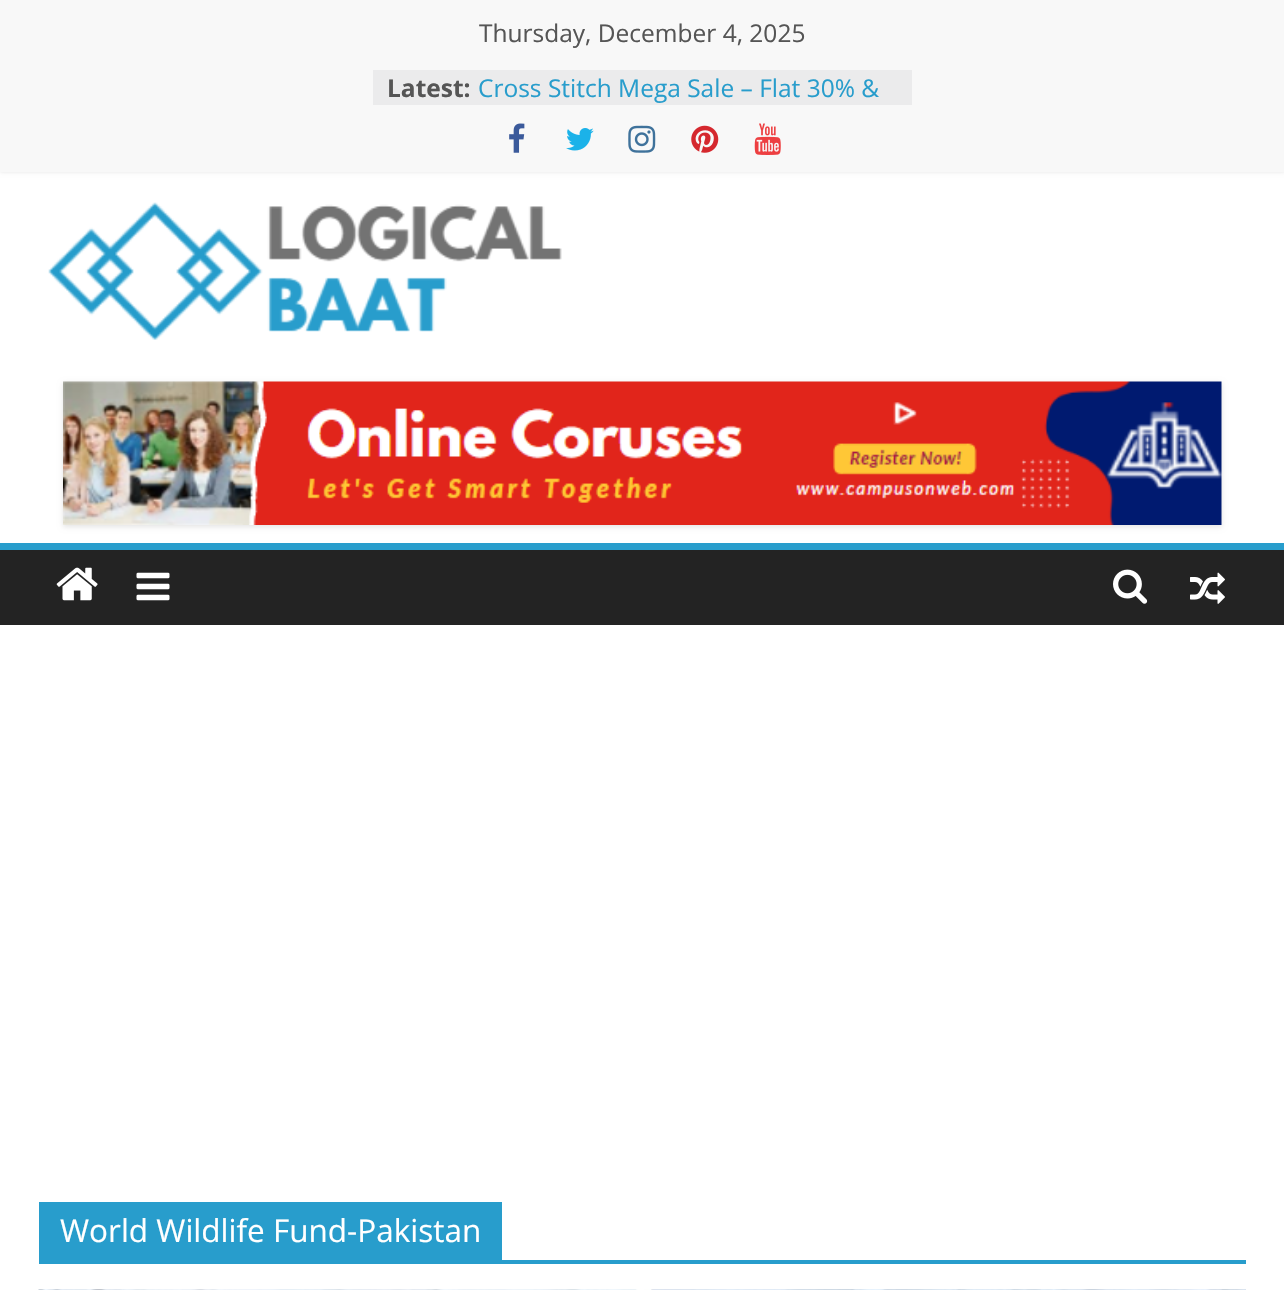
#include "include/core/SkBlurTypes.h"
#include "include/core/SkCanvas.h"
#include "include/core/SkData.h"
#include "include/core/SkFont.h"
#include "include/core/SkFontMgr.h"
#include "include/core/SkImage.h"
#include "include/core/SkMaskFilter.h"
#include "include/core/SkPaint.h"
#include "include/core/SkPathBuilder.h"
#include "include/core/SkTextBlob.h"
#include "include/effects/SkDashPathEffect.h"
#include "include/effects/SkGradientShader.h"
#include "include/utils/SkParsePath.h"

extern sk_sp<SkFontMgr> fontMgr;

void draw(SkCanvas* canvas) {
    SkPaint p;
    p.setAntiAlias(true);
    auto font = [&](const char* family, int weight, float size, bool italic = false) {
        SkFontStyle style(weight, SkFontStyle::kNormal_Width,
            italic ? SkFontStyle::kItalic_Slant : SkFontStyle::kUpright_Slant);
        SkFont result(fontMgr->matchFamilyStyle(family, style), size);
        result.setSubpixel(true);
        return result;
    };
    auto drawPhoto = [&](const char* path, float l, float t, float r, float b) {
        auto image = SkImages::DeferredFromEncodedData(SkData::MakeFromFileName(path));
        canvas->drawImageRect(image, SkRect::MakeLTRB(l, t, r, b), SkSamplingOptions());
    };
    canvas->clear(0xFFFFFFFF);
    p.setColor(0x1A000000);
    p.setMaskFilter(SkMaskFilter::MakeBlur(kNormal_SkBlurStyle, 2));
    canvas->drawRect(SkRect::MakeLTRB(0, 0, 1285, 172), p);
    p.setMaskFilter(nullptr);
    p.setColor(0xFFF8F8F8);
    canvas->drawRect(SkRect::MakeLTRB(0, 0, 1284, 172), p);
    auto font1 = font("Open Sans", 400, 24.5f);
    p.setColor(0xFF555555);
    canvas->drawString("Thursday, December 4, 2025", 479, 42, font1, p);
    p.setColor(0xFFEBEBEC);
    canvas->drawRect(SkRect::MakeLTRB(373, 70, 912, 105), p);
    auto font2 = font("Open Sans", 700, 24.5f);
    p.setColor(0xFF555555);
    canvas->drawString("Latest:", 387, 97, font2, p);
    p.setColor(0xFF289DCC);
    canvas->drawString("Cross Stitch Mega Sale – Flat 30% &", 478, 97, font1, p);
    drawPhoto("media/1.png", 509, 123, 525, 153);
    drawPhoto("media/2.png", 566, 128, 594, 151);
    drawPhoto("media/3.png", 628, 125, 656, 153);
    drawPhoto("media/4.png", 691, 125, 719, 153);
    drawPhoto("media/5.png", 754, 123, 781, 155);
    drawPhoto("media/6.png", 48, 202, 562, 340);
    p.setColor(0x1A000000);
    p.setMaskFilter(SkMaskFilter::MakeBlur(kNormal_SkBlurStyle, 2.5f));
    canvas->drawRect(SkRect::MakeLTRB(63, 383, 1222, 527), p);
    p.setMaskFilter(nullptr);
    drawPhoto("media/7.png", 63, 381, 1222, 525);
    p.setColor(0xFF232323);
    canvas->drawRect(SkRect::MakeLTRB(0, 550, 1284, 625), p);
    p.setColor(0xFF289DCC);
    canvas->drawRect(SkRect::MakeLTRB(0, 543, 1284, 550), p);
    drawPhoto("media/8.png", 56, 567, 98, 601);
    drawPhoto("media/9.png", 136, 572, 170, 601);
    drawPhoto("media/10.png", 1113, 569, 1148, 604);
    drawPhoto("media/11.png", 1190, 572, 1225, 604);
    canvas->drawRect(SkRect::MakeLTRB(39, 1260, 1246, 1264), p);
    canvas->drawRect(SkRect::MakeLTRB(39, 1202, 502, 1260), p);
    auto font3 = font("Open Sans", 400, 31.5f);
    p.setColor(0xFFFFFFFF);
    canvas->drawString("World Wildlife Fund-Pakistan", 60, 1242, font3, p);
    drawPhoto("media/12.png", 38, 1289, 1246, 1290);
}
